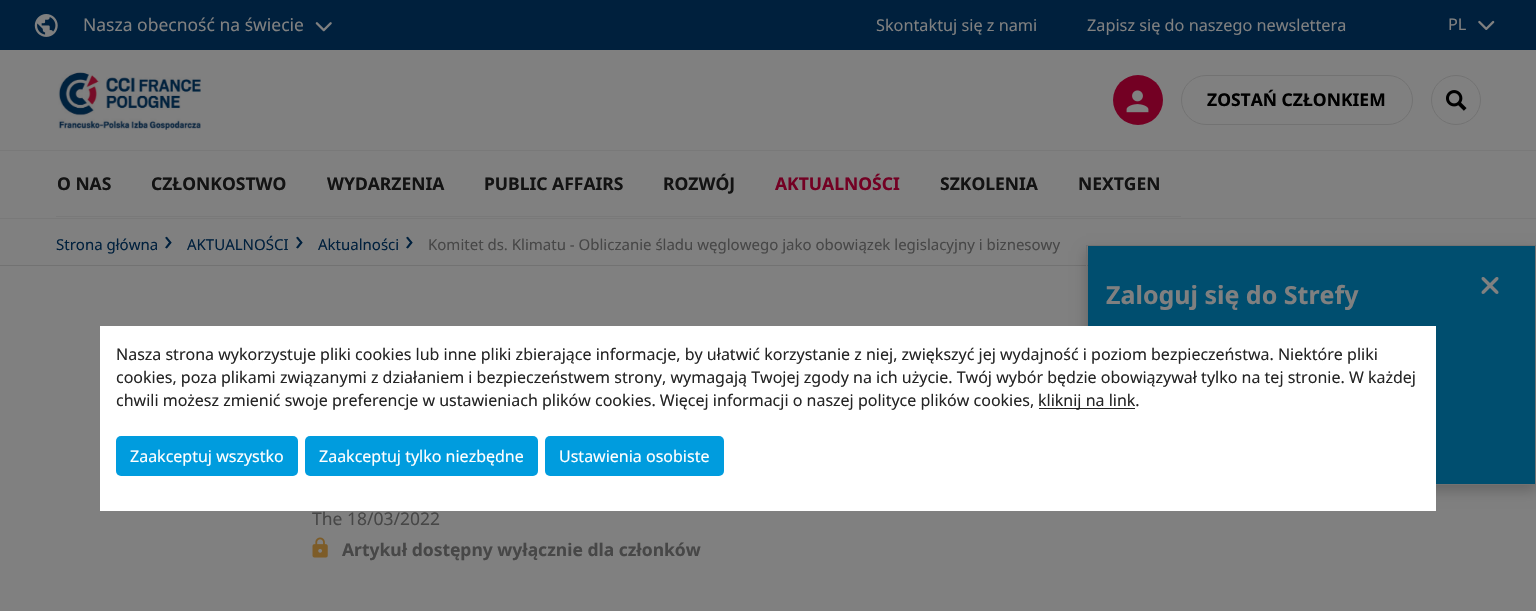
#include "include/core/SkBlurTypes.h"
#include "include/core/SkCanvas.h"
#include "include/core/SkData.h"
#include "include/core/SkFont.h"
#include "include/core/SkFontMgr.h"
#include "include/core/SkImage.h"
#include "include/core/SkMaskFilter.h"
#include "include/core/SkPaint.h"
#include "include/core/SkPathBuilder.h"
#include "include/core/SkTextBlob.h"
#include "include/effects/SkDashPathEffect.h"
#include "include/effects/SkGradientShader.h"
#include "include/utils/SkParsePath.h"

extern sk_sp<SkFontMgr> fontMgr;

void draw(SkCanvas* canvas) {
    SkPaint p;
    p.setAntiAlias(true);
    auto font = [&](const char* family, int weight, float size, bool italic = false) {
        SkFontStyle style(weight, SkFontStyle::kNormal_Width,
            italic ? SkFontStyle::kItalic_Slant : SkFontStyle::kUpright_Slant);
        SkFont result(fontMgr->matchFamilyStyle(family, style), size);
        result.setSubpixel(true);
        return result;
    };
    auto drawPhoto = [&](const char* path, float l, float t, float r, float b) {
        auto image = SkImages::DeferredFromEncodedData(SkData::MakeFromFileName(path));
        canvas->drawImageRect(image, SkRect::MakeLTRB(l, t, r, b), SkSamplingOptions());
    };
    canvas->clear(0xFF808080);
    p.setColor(0xFF797979);
    canvas->drawRect(SkRect::MakeLTRB(0, 218, 1536, 219), p);
    p.setColor(0xFF00203D);
    canvas->drawRect(SkRect::MakeLTRB(0, 0, 1536, 50), p);
    drawPhoto("media/1.png", 34, 14, 58, 37);
    auto font1 = font("Noto Sans", 400, 17.5f);
    p.setColor(0xFF808080);
    canvas->drawString("Nasza obecność na świecie", 83, 31, font1, p);
    drawPhoto("media/2.png", 315, 22, 332, 32);
    auto font2 = font("Noto Sans", 400, 16.25f);
    {
        const struct { const char* s; float x, y; } items[] = {
            {"Skontaktuj się z nami", 876, 31},
            {"Zapisz się do naszego newslettera", 1087, 31},
            {"PL", 1448, 30},
        };
        for (auto [s, x, y] : items) {
            canvas->drawString(s, x, y, font2, p);
        }
    }
    drawPhoto("media/3.png", 1478, 20, 1495, 30);
    p.setColor(0xFF797979);
    canvas->drawRect(SkRect::MakeLTRB(0, 150, 1536, 151), p);
    drawPhoto("media/4.png", 58, 72, 201, 130);
    p.setColor(0xFF730023);
    canvas->drawCircle(1138, 100, 25, p);
    drawPhoto("media/5.png", 1126, 90, 1149, 113);
    p.setStyle(SkPaint::kStroke_Style);
    p.setStrokeWidth(1);
    p.setColor(0xFF727272);
    canvas->drawRoundRect(SkRect::MakeLTRB(1181.5f, 75.5f, 1412.5f, 124.5f), 24.5f, 24.5f, p);
    auto font3 = font("Noto Sans", 700, 17.5f);
    p.setStyle(SkPaint::kFill_Style);
    p.setColor(0xFF000000);
    canvas->drawString("ZOSTAŃ CZŁONKIEM", 1207, 106, font3, p);
    p.setStyle(SkPaint::kStroke_Style);
    p.setColor(0xFF727272);
    canvas->drawCircle(1456, 100, 24.5f, p);
    drawPhoto("media/6.png", 1446, 90, 1467, 111);
    p.setStyle(SkPaint::kFill_Style);
    p.setColor(0xFF797979);
    canvas->drawRect(SkRect::MakeLTRB(56, 216, 1181, 217), p);
    p.setColor(0xFF131313);
    {
        const struct { const char* s; float x, y; } items[] = {
            {"O NAS", 57, 190},
            {"CZŁONKOSTWO", 151, 190},
            {"WYDARZENIA", 327, 190},
            {"PUBLIC AFFAIRS", 484, 190},
            {"ROZWÓJ", 663, 190},
        };
        for (auto [s, x, y] : items) {
            canvas->drawString(s, x, y, font3, p);
        }
    }
    p.setColor(0xFF730023);
    canvas->drawString("AKTUALNOŚCI", 775, 190, font3, p);
    p.setColor(0xFF131313);
    canvas->drawString("SZKOLENIA", 940, 190, font3, p);
    canvas->drawString("NEXTGEN", 1078, 190, font3, p);
    p.setColor(0xFF727272);
    canvas->drawRect(SkRect::MakeLTRB(0, 265, 1088, 266), p);
    auto font4 = font("Noto Sans", 400, 15);
    p.setColor(0xFF00203D);
    canvas->drawString("Strona główna", 56, 250, font4, p);
    auto font5 = font("Noto Sans", 400, 28);
    canvas->drawString("›", 164, 250, font5, p);
    canvas->drawString("AKTUALNOŚCI", 187, 250, font4, p);
    canvas->drawString("›", 295, 250, font5, p);
    canvas->drawString("Aktualności", 318, 250, font4, p);
    canvas->drawString("›", 405, 250, font5, p);
    p.setColor(0xFF474747);
    canvas->drawString("Komitet ds. Klimatu - Obliczanie śladu węglowego jako obowiązek legislacyjny i biznesowy", 428, 250, font4, p);
    canvas->drawString("The 18/03/2022", 312, 525, font1, p);
    drawPhoto("media/7.png", 312, 537, 328, 558);
    canvas->drawString("Artykuł dostępny wyłącznie dla członków", 342, 556, font3, p);
    p.setColor(0x33000000);
    p.setMaskFilter(SkMaskFilter::MakeBlur(kNormal_SkBlurStyle, 6));
    canvas->drawRect(SkRect::MakeLTRB(1086, 251, 1536, 491), p);
    p.setMaskFilter(nullptr);
    p.setColor(0xFF004E6F);
    canvas->drawRect(SkRect::MakeLTRB(1088, 246, 1535, 484), p);
    p.setStyle(SkPaint::kStroke_Style);
    p.setColor(0xFF727272);
    canvas->drawRect(SkRect::MakeLTRB(1086.5f, 245.5f, 1535.5f, 484.5f), p);
    auto font6 = font("Noto Sans", 700, 25);
    p.setStyle(SkPaint::kFill_Style);
    p.setColor(0xFF808080);
    canvas->drawString("Zaloguj się do Strefy", 1106, 304, font6, p);
    drawPhoto("media/8.png", 1481, 277, 1499, 294);
    p.setColor(0xFFFFFFFF);
    canvas->drawRect(SkRect::MakeLTRB(100, 326, 1436, 511), p);
    auto font7 = font("Noto Sans", 400, 16);
    p.setColor(0xFF252525);
    {
        const struct { const char* s; float x, y; } items[] = {
            {"Nasza strona wykorzystuje pliki cookies lub inne pliki zbierające informacje, by ułatwić korzystanie z niej, zwiększyć jej wydajność i poziom bezpieczeństwa. Niektóre pliki", 116, 360},
            {"cookies, poza plikami związanymi z działaniem i bezpieczeństwem strony, wymagają Twojej zgody na ich użycie. Twój wybór będzie obowiązywał tylko na tej stronie. W każdej", 116, 383},
            {"chwili możesz zmienić swoje preferencje w ustawieniach plików cookies. Więcej informacji o naszej polityce plików cookies,", 116, 406},
        };
        for (auto [s, x, y] : items) {
            canvas->drawString(s, x, y, font7, p);
        }
    }
    canvas->drawRect(SkRect::MakeLTRB(1039, 408, 1135, 409), p);
    canvas->drawString("kliknij na link.", 1038, 406, font7, p);
    p.setColor(0xFF009CDE);
    canvas->drawRoundRect(SkRect::MakeLTRB(116, 436, 298, 476), 5, 5, p);
    p.setColor(0xFFFFFFFF);
    canvas->drawString("Zaakceptuj wszystko", 130, 462, font7, p);
    p.setColor(0xFF009CDE);
    canvas->drawRoundRect(SkRect::MakeLTRB(305, 436, 538, 476), 5, 5, p);
    p.setColor(0xFFFFFFFF);
    canvas->drawString("Zaakceptuj tylko niezbędne", 319, 462, font7, p);
    p.setColor(0xFF009CDE);
    canvas->drawRoundRect(SkRect::MakeLTRB(545, 436, 724, 476), 5, 5, p);
    p.setColor(0xFFFFFFFF);
    canvas->drawString("Ustawienia osobiste", 559, 462, font7, p);
}
